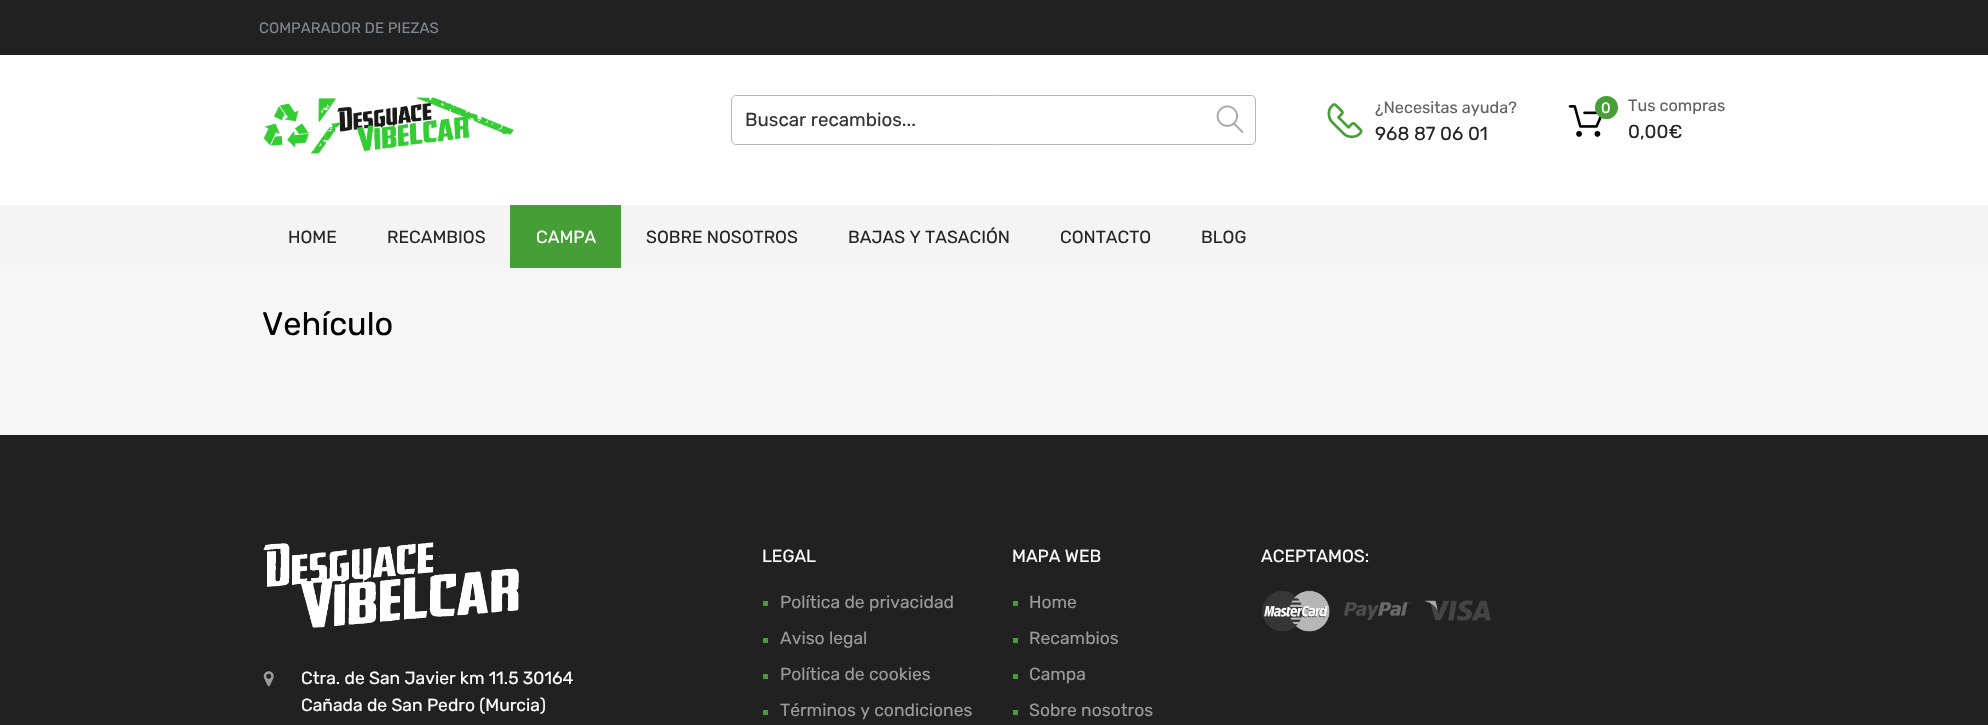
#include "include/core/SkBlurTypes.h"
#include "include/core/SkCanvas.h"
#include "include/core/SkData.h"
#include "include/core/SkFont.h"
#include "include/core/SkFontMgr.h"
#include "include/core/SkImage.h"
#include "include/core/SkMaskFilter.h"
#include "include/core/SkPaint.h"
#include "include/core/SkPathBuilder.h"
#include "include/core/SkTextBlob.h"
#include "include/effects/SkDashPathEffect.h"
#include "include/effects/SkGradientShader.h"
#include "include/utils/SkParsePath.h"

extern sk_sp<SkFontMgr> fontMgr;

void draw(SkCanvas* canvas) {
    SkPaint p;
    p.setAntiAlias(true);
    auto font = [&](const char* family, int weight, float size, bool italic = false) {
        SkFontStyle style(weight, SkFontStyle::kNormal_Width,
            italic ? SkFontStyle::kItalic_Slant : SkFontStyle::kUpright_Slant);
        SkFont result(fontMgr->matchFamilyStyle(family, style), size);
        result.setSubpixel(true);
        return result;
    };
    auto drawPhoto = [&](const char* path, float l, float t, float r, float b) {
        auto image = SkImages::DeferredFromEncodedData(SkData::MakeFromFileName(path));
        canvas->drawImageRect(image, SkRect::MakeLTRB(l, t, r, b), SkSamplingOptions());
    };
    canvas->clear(0xFF212121);
    p.setColor(0xFFF6F6F6);
    canvas->drawRect(SkRect::MakeLTRB(0, 268, 1988, 435), p);
    p.setColor(0xFFFFFFFF);
    canvas->drawRect(SkRect::MakeLTRB(0, 55, 1988, 205), p);
    auto font1 = font("Rubik", 300, 15);
    p.setColor(0xFF81858C);
    canvas->drawString("COMPARADOR DE PIEZAS", 259, 33, font1, p);
    drawPhoto("media/1.png", 263, 97, 514, 154);
    p.setStyle(SkPaint::kStroke_Style);
    p.setStrokeWidth(1);
    p.setColor(0xFFB6B6B6);
    canvas->drawRoundRect(SkRect::MakeLTRB(731.5f, 95.5f, 1255.5f, 144.5f), 4.5f, 4.5f, p);
    auto font2 = font("Rubik", 300, 18.75f);
    p.setStyle(SkPaint::kFill_Style);
    p.setColor(0xFF333333);
    canvas->drawString("Buscar recambios...", 745, 126, font2, p);
    drawPhoto("media/2.png", 1216, 105, 1244, 133);
    drawPhoto("media/3.png", 1327, 103, 1363, 139);
    auto font3 = font("Rubik", 300, 16.25f);
    p.setColor(0xFF626262);
    canvas->drawString("¿Necesitas ayuda?", 1375, 113, font3, p);
    p.setColor(0xFF262626);
    canvas->drawString("968 87 06 01", 1375, 140, font2, p);
    drawPhoto("media/4.png", 1568, 105, 1602, 137);
    p.setColor(0xFF469E36);
    canvas->drawCircle(1606.5f, 107.5f, 11.5f, p);
    p.setColor(0xFFFFFFFF);
    canvas->drawString("0", 1601, 113, font1, p);
    p.setColor(0xFF626262);
    canvas->drawString("Tus compras", 1628, 111, font3, p);
    p.setColor(0xFF262626);
    canvas->drawString("0,00€", 1628, 138, font2, p);
    p.setColor(0xFFF4F4F4);
    canvas->drawRect(SkRect::MakeLTRB(0, 205, 1988, 268), p);
    auto font4 = font("Rubik", 300, 17.5f);
    p.setColor(0xFF262626);
    canvas->drawString("HOME", 288, 243, font4, p);
    canvas->drawString("RECAMBIOS", 387, 243, font4, p);
    p.setColor(0xFF469E36);
    canvas->drawRect(SkRect::MakeLTRB(510, 205, 621, 268), p);
    p.setColor(0xFFFFFFFF);
    canvas->drawString("CAMPA", 536, 243, font4, p);
    p.setColor(0xFF262626);
    {
        const struct { const char* s; float x, y; } items[] = {
            {"SOBRE NOSOTROS", 646, 243},
            {"BAJAS Y TASACIÓN", 848, 243},
            {"CONTACTO", 1060, 243},
            {"BLOG", 1201, 243},
        };
        for (auto [s, x, y] : items) {
            canvas->drawString(s, x, y, font4, p);
        }
    }
    auto font5 = font("Rubik", 300, 32.5f);
    p.setColor(0xFF000000);
    canvas->drawString("Vehículo", 262, 335, font5, p);
    p.setColor(0xFFFFFFFF);
    canvas->drawString("LEGAL", 762, 562, font4, p);
    p.setColor(0xFF469E36);
    canvas->drawRect(SkRect::MakeLTRB(763, 601, 768, 606), p);
    p.setColor(0xFF9A9A9A);
    canvas->drawString("Política de privacidad", 780, 608, font4, p);
    p.setColor(0xFF469E36);
    canvas->drawRect(SkRect::MakeLTRB(763, 638, 768, 643), p);
    p.setColor(0xFF9A9A9A);
    canvas->drawString("Aviso legal", 780, 644, font4, p);
    p.setColor(0xFF469E36);
    canvas->drawRect(SkRect::MakeLTRB(763, 674, 768, 679), p);
    p.setColor(0xFF9A9A9A);
    canvas->drawString("Política de cookies", 780, 680, font4, p);
    p.setColor(0xFF469E36);
    canvas->drawRect(SkRect::MakeLTRB(763, 710, 768, 715), p);
    p.setColor(0xFF9A9A9A);
    canvas->drawString("Términos y condiciones", 780, 716, font4, p);
    p.setColor(0xFFFFFFFF);
    canvas->drawString("MAPA WEB", 1012, 562, font4, p);
    p.setColor(0xFF469E36);
    canvas->drawRect(SkRect::MakeLTRB(1013, 601, 1018, 606), p);
    p.setColor(0xFF9A9A9A);
    canvas->drawString("Home", 1029, 608, font4, p);
    p.setColor(0xFF469E36);
    canvas->drawRect(SkRect::MakeLTRB(1013, 638, 1018, 643), p);
    p.setColor(0xFF9A9A9A);
    canvas->drawString("Recambios", 1029, 644, font4, p);
    p.setColor(0xFF469E36);
    canvas->drawRect(SkRect::MakeLTRB(1013, 674, 1018, 679), p);
    p.setColor(0xFF9A9A9A);
    canvas->drawString("Campa", 1029, 680, font4, p);
    p.setColor(0xFF469E36);
    canvas->drawRect(SkRect::MakeLTRB(1013, 710, 1018, 715), p);
    p.setColor(0xFF9A9A9A);
    canvas->drawString("Sobre nosotros", 1029, 716, font4, p);
    p.setColor(0xFFFFFFFF);
    canvas->drawString("ACEPTAMOS:", 1261, 562, font4, p);
    drawPhoto("media/5.png", 1262, 590, 1330, 632);
    drawPhoto("media/6.png", 1344, 602, 1412, 620);
    drawPhoto("media/7.png", 1425, 600, 1491, 621);
    drawPhoto("media/8.png", 263, 542, 519, 628);
    drawPhoto("media/9.png", 263, 671, 274, 687);
    canvas->drawString("Ctra. de San Javier km 11.5 30164", 301, 684, font4, p);
    canvas->drawString("Cañada de San Pedro (Murcia)", 301, 711, font4, p);
}
